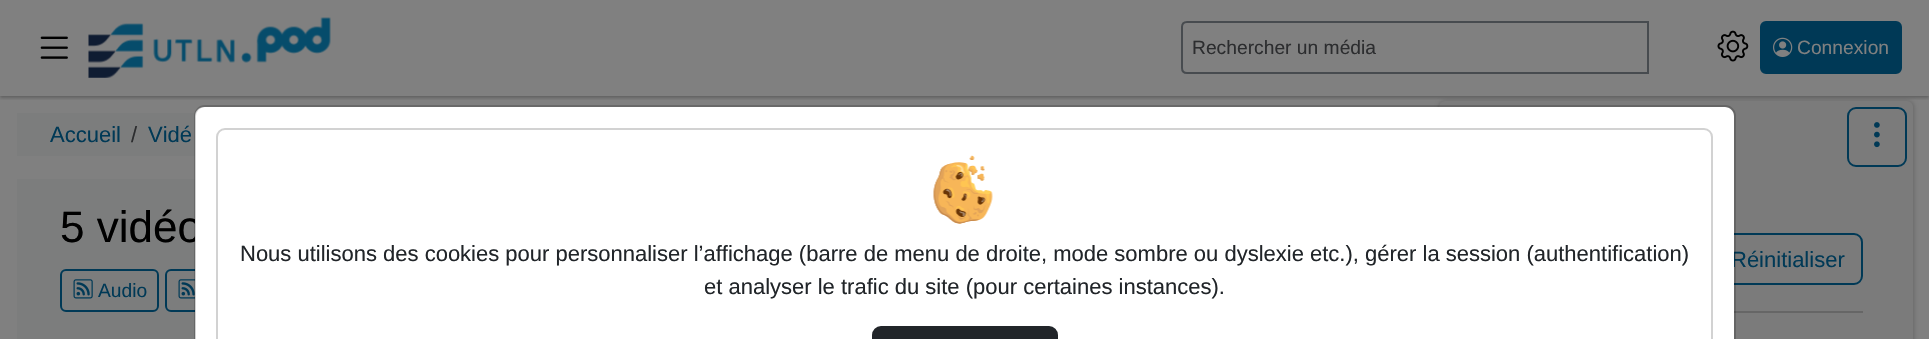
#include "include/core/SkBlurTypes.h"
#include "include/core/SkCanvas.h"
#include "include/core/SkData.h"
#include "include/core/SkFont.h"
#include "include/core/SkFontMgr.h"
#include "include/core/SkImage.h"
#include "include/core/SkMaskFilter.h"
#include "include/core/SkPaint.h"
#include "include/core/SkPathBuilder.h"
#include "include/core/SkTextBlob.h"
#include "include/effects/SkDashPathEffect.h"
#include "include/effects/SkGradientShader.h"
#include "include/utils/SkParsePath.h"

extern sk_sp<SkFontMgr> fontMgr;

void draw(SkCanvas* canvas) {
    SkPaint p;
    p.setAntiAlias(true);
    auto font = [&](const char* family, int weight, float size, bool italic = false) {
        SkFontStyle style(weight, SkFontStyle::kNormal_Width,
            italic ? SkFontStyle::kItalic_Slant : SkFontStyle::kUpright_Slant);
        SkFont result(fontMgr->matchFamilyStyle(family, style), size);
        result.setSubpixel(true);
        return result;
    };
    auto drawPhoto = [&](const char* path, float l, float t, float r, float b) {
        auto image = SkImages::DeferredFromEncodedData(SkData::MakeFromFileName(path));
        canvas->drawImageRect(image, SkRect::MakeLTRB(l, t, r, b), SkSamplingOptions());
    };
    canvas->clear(0xFF808080);
    p.setColor(0x33000000);
    p.setMaskFilter(SkMaskFilter::MakeBlur(kNormal_SkBlurStyle, 2));
    canvas->drawRoundRect(SkRect::MakeLTRB(1439, 101, 1914, 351), 6, 6, p);
    p.setMaskFilter(nullptr);
    p.setColor(0xFF7B7B7B);
    canvas->drawRoundRect(SkRect::MakeLTRB(1439, 101, 1913, 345), 6, 6, p);
    canvas->save();
    canvas->clipRect(SkRect::MakeLTRB(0, 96, 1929, 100));
    p.setColor(0x3D000000);
    p.setMaskFilter(SkMaskFilter::MakeBlur(kNormal_SkBlurStyle, 1.5f));
    canvas->drawRect(SkRect::MakeLTRB(0, 2, 1929, 98), p);
    p.setMaskFilter(nullptr);
    canvas->restore();
    drawPhoto("media/1.png", 40, 36, 68, 59);
    drawPhoto("media/2.png", 88, 17, 331, 78);
    p.setStyle(SkPaint::kStroke_Style);
    p.setStrokeWidth(2);
    p.setColor(0xFF474B4F);
    canvas->drawPath(SkPathBuilder().moveTo(1187, 22).lineTo(1648, 22).lineTo(1648, 73).lineTo(1187, 73).cubicTo(1184, 73, 1182, 71, 1182, 68).lineTo(1182, 27).cubicTo(1182, 24, 1184, 22, 1187, 22).close().detach(), p);
    auto font1 = font("Liberation Sans", 400, 19.25f);
    p.setStyle(SkPaint::kFill_Style);
    p.setColor(0xFF2C2D2F);
    canvas->drawString("Rechercher un média", 1192, 54, font1, p);
    drawPhoto("media/3.png", 1717, 30, 1749, 62);
    p.setColor(0xFF003956);
    canvas->drawRoundRect(SkRect::MakeLTRB(1761, 22, 1901, 73), 5, 5, p);
    p.setStyle(SkPaint::kStroke_Style);
    canvas->drawRoundRect(SkRect::MakeLTRB(1761, 22, 1901, 73), 5, 5, p);
    drawPhoto("media/4.png", 1773, 37, 1793, 57);
    p.setStyle(SkPaint::kFill_Style);
    p.setColor(0xFF808080);
    canvas->drawString("Connexion", 1797, 54, font1, p);
    p.setColor(0xFF7C7D7D);
    canvas->drawRect(SkRect::MakeLTRB(17, 113, 196, 156), p);
    auto font2 = font("Liberation Sans", 400, 22);
    p.setColor(0xFF003956);
    canvas->drawString("Accueil", 50, 142, font2, p);
    p.setColor(0xFF2C2D2F);
    canvas->drawString("/", 131, 142, font2, p);
    p.setColor(0xFF003956);
    canvas->drawString("Vidé", 148, 142, font2, p);
    p.setColor(0xFF7C7D7D);
    canvas->drawRect(SkRect::MakeLTRB(17, 179, 195, 339), p);
    auto font3 = font("Liberation Sans", 400, 44);
    p.setColor(0xFF000000);
    canvas->drawString("5 vidéo", 60, 242, font3, p);
    p.setStyle(SkPaint::kStroke_Style);
    p.setColor(0xFF003956);
    canvas->drawRoundRect(SkRect::MakeLTRB(61, 270, 158, 311), 5, 5, p);
    drawPhoto("media/5.png", 73, 279, 93, 299);
    p.setStyle(SkPaint::kFill_Style);
    canvas->drawString("Audio", 98, 297, font1, p);
    p.setStyle(SkPaint::kStroke_Style);
    canvas->drawRoundRect(SkRect::MakeLTRB(166, 270, 263, 311), 5, 5, p);
    drawPhoto("media/6.png", 178, 279, 195, 299);
    canvas->drawRoundRect(SkRect::MakeLTRB(1714, 234, 1862, 284), 8, 8, p);
    p.setStyle(SkPaint::kFill_Style);
    canvas->drawString("Réinitialiser", 1731, 267, font2, p);
    p.setColor(0xFF666666);
    canvas->drawRect(SkRect::MakeLTRB(1734, 311, 1863, 313), p);
    p.setStyle(SkPaint::kStroke_Style);
    p.setColor(0xFF003956);
    canvas->drawRoundRect(SkRect::MakeLTRB(1848, 108, 1906, 166), 8, 8, p);
    drawPhoto("media/7.png", 1874, 122, 1880, 148);
    p.setStyle(SkPaint::kFill_Style);
    p.setColor(0xFFFFFFFF);
    canvas->drawPath(SkPathBuilder().moveTo(204, 107).lineTo(1725, 107).cubicTo(1730, 107, 1734, 111, 1734, 116).lineTo(1734, 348).lineTo(195, 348).lineTo(195, 116).cubicTo(195, 111, 199, 107, 204, 107).close().detach(), p);
    p.setStyle(SkPaint::kStroke_Style);
    p.setColor(0x2E000000);
    canvas->drawRoundRect(SkRect::MakeLTRB(195, 106, 1735, 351), 10, 10, p);
    p.setColor(0xFFD2D2D2);
    canvas->drawRoundRect(SkRect::MakeLTRB(217, 129, 1712, 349), 8, 8, p);
    drawPhoto("media/8.png", 933, 155, 993, 224);
    p.setStyle(SkPaint::kFill_Style);
    p.setColor(0xFF212529);
    canvas->drawString("Nous utilisons des cookies pour personnaliser l’affichage (barre de menu de droite, mode sombre ou dyslexie etc.), gérer la session (authentification)", 240, 261, font2, p);
    canvas->drawString("et analyser le trafic du site (pour certaines instances).", 704, 294, font2, p);
    canvas->drawRoundRect(SkRect::MakeLTRB(873, 327, 1057, 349), 8, 8, p);
    p.setStyle(SkPaint::kStroke_Style);
    canvas->drawRoundRect(SkRect::MakeLTRB(873, 327, 1057, 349), 8, 8, p);
}
